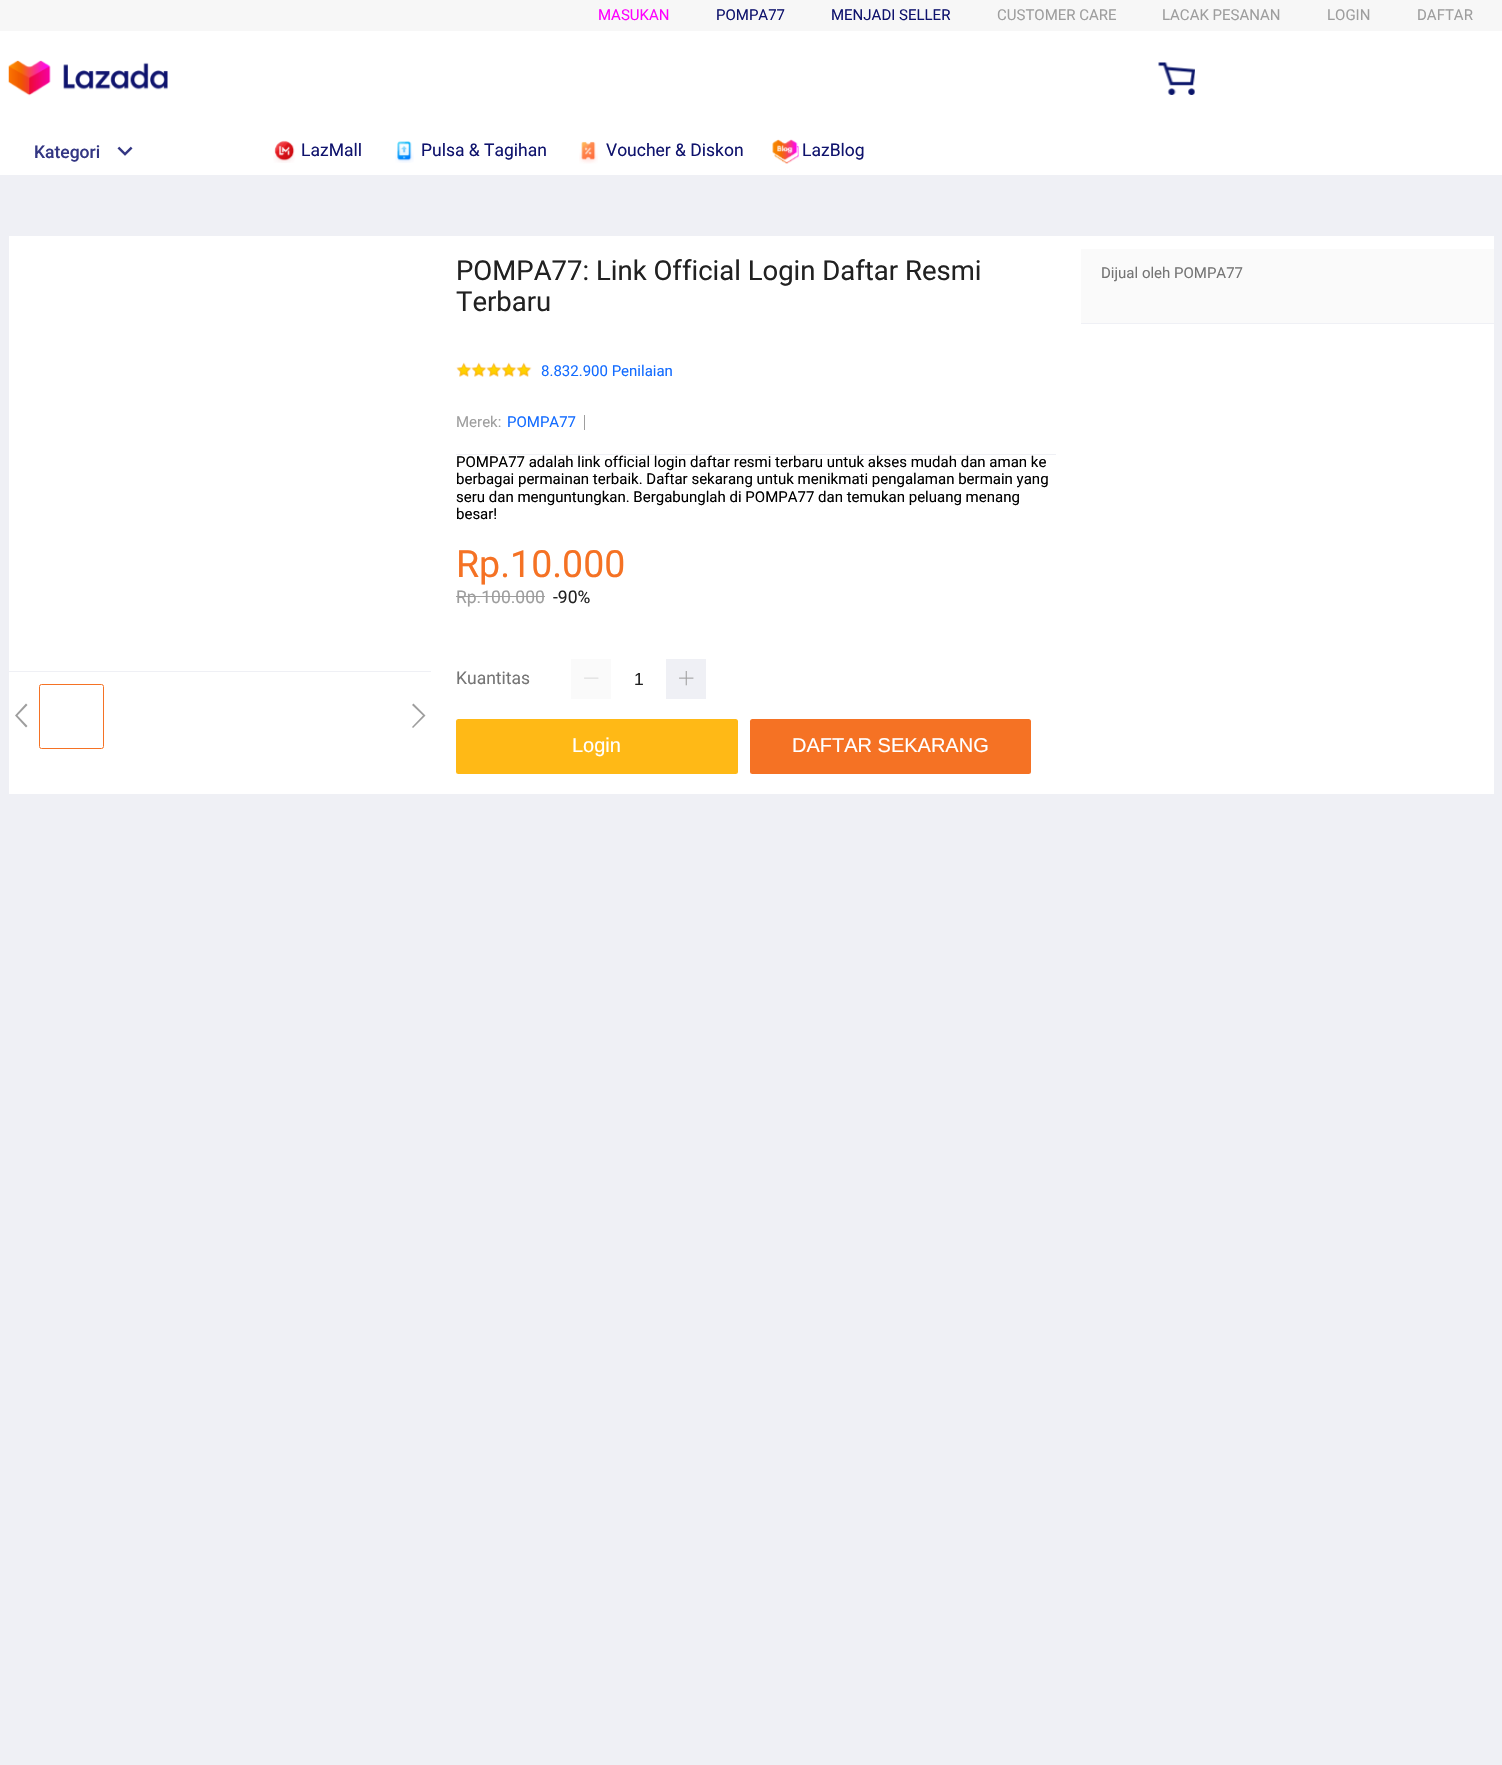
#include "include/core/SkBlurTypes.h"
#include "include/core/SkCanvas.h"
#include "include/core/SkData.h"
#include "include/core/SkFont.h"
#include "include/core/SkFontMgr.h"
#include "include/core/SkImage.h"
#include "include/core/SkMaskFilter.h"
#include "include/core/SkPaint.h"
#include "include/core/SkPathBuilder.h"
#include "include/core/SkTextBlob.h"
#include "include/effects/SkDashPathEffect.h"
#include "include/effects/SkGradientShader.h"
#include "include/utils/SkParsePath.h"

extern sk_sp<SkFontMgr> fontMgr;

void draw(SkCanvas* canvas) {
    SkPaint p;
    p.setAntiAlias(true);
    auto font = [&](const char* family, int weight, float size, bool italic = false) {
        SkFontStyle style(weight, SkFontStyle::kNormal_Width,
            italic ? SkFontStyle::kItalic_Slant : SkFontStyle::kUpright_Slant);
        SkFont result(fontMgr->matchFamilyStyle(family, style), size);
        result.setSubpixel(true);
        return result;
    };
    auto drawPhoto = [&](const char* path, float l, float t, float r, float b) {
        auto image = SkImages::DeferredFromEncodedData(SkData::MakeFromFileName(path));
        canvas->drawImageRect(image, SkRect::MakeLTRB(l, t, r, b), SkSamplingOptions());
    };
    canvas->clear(0xFFEFF0F5);
    p.setColor(0xFFFFFFFF);
    canvas->drawRect(SkRect::MakeLTRB(0, 31, 1502, 175), p);
    p.setColor(0xFFF7F7F7);
    canvas->drawRect(SkRect::MakeLTRB(0, 0, 1502, 31), p);
    auto font1 = font("Roboto", 400, 15);
    p.setColor(0xFFFF00FF);
    canvas->drawString("MASUKAN", 598, 20, font1, p);
    p.setColor(0xFF0F136D);
    canvas->drawString("POMPA77", 716, 20, font1, p);
    canvas->drawString("MENJADI SELLER", 831, 20, font1, p);
    p.setColor(0xFF9E9E9E);
    {
        const struct { const char* s; float x, y; } items[] = {
            {"CUSTOMER CARE", 997, 20},
            {"LACAK PESANAN", 1162, 20},
            {"LOGIN", 1327, 20},
            {"DAFTAR", 1417, 20},
        };
        for (auto [s, x, y] : items) {
            canvas->drawString(s, x, y, font1, p);
        }
    }
    drawPhoto("media/1.png", 8, 60, 168, 96);
    drawPhoto("media/2.png", 1158, 62, 1195, 95);
    auto font2 = font("Roboto", 500, 17.5f);
    p.setColor(0xFF333683);
    canvas->drawString("Kategori", 34, 158, font2, p);
    drawPhoto("media/3.png", 117, 146, 133, 156);
    drawPhoto("media/4.png", 273, 140, 295, 163);
    auto font3 = font("Roboto", 400, 17.5f);
    p.setColor(0xFF0F136D);
    canvas->drawString("LazMall", 301, 156, font3, p);
    drawPhoto("media/5.png", 395, 141, 414, 163);
    canvas->drawString("Pulsa & Tagihan", 421, 156, font3, p);
    drawPhoto("media/6.png", 579, 141, 598, 164);
    canvas->drawString("Voucher & Diskon", 606, 156, font3, p);
    drawPhoto("media/7.png", 772, 139, 799, 164);
    canvas->drawString("LazBlog", 802, 156, font3, p);
    p.setColor(0xFFFFFFFF);
    canvas->drawRect(SkRect::MakeLTRB(9, 236, 1494, 794), p);
    p.setColor(0xFFEFF0F5);
    canvas->drawRect(SkRect::MakeLTRB(9, 671, 431, 672), p);
    p.setColor(0xFF9E9E9E);
    canvas->drawPath(SkPathBuilder().moveTo(27.5f, 726).lineTo(17.5f, 715.5f).lineTo(27.5f, 705).lineTo(26, 703.5f).lineTo(15, 715.5f).lineTo(26, 727.5f).close().detach(), p);
    p.setStyle(SkPaint::kStroke_Style);
    p.setStrokeWidth(1);
    p.setColor(0xFFF57224);
    canvas->drawRoundRect(SkRect::MakeLTRB(39.5f, 684.5f, 103.5f, 748.5f), 2, 2, p);
    p.setStyle(SkPaint::kFill_Style);
    p.setColor(0xFF9E9E9E);
    canvas->drawPath(SkPathBuilder().moveTo(413, 728).lineTo(412, 727).lineTo(423, 715.5f).lineTo(412, 705).lineTo(413.5f, 703.5f).lineTo(425.5f, 715.5f).close().detach(), p);
    auto font4 = font("Roboto", 400, 27.5f);
    p.setColor(0xFF212121);
    canvas->drawString("POMPA77: Link Official Login Daftar Resmi", 456, 280, font4, p);
    canvas->drawString("Terbaru", 456, 311, font4, p);
    drawPhoto("media/8.png", 456, 362, 472, 377);
    drawPhoto("media/9.png", 471, 362, 487, 377);
    drawPhoto("media/9.png", 486, 362, 502, 377);
    drawPhoto("media/9.png", 501, 362, 517, 377);
    drawPhoto("media/9.png", 516, 362, 532, 377);
    p.setColor(0xFF136CFF);
    canvas->drawString("8.832.900 Penilaian", 541, 376, font1, p);
    p.setColor(0xFFEFF0F5);
    canvas->drawRect(SkRect::MakeLTRB(456, 454, 1056, 455), p);
    p.setColor(0xFF9E9E9E);
    canvas->drawString("Merek:", 456, 427, font1, p);
    p.setColor(0xFF136CFF);
    canvas->drawString("POMPA77", 507, 427, font1, p);
    p.setColor(0xFF9E9E9E);
    canvas->drawRect(SkRect::MakeLTRB(584, 415, 585, 430), p);
    p.setColor(0xFF000000);
    {
        const struct { const char* s; float x, y; } items[] = {
            {"POMPA77 adalah link official login daftar resmi terbaru untuk akses mudah dan aman ke", 456, 467},
            {"berbagai permainan terbaik. Daftar sekarang untuk menikmati pengalaman bermain yang", 456, 484},
            {"seru dan menguntungkan. Bergabunglah di POMPA77 dan temukan peluang menang", 456, 502},
            {"besar!", 456, 519},
        };
        for (auto [s, x, y] : items) {
            canvas->drawString(s, x, y, font1, p);
        }
    }
    auto font5 = font("Roboto", 400, 37.5f);
    p.setColor(0xFFF57224);
    canvas->drawString("Rp.10.000", 456, 577, font5, p);
    p.setColor(0xFF9E9E9E);
    canvas->drawString("Rp.100.000", 456, 603, font3, p);
    canvas->drawRect(SkRect::MakeLTRB(456, 596, 545, 597), p);
    p.setColor(0xFF212121);
    canvas->drawString("-90%", 553, 603, font3, p);
    p.setColor(0xFF757575);
    canvas->drawString("Kuantitas", 456, 684, font3, p);
    p.setColor(0xFFFAFAFA);
    canvas->drawRect(SkRect::MakeLTRB(571, 659, 611, 699), p);
    drawPhoto("media/10.png", 584, 677, 599, 679);
    p.setColor(0xFFEFF0F5);
    canvas->drawRect(SkRect::MakeLTRB(666, 659, 706, 699), p);
    drawPhoto("media/11.png", 679, 671, 694, 686);
    auto font6 = font("Liberation Sans", 400, 17.5f);
    p.setColor(0xFF212121);
    canvas->drawString("1", 634, 685, font6, p);
    p.setColor(0xFFFFB916);
    canvas->drawRoundRect(SkRect::MakeLTRB(456, 719, 738, 774), 2.5f, 2.5f, p);
    auto font7 = font("Liberation Sans", 400, 20);
    p.setColor(0xFFFFFFFF);
    canvas->drawString("Login", 572, 752, font7, p);
    p.setColor(0xFFF57224);
    canvas->drawRoundRect(SkRect::MakeLTRB(750, 719, 1031, 774), 2.5f, 2.5f, p);
    p.setColor(0xFFFFFFFF);
    canvas->drawString("DAFTAR SEKARANG", 792, 752, font7, p);
    p.setColor(0xFFFAFAFA);
    canvas->drawRect(SkRect::MakeLTRB(1081, 249, 1494, 323), p);
    p.setColor(0xFF757575);
    canvas->drawString("Dijual oleh POMPA77", 1101, 278, font1, p);
    p.setColor(0xFFEFF0F5);
    canvas->drawRect(SkRect::MakeLTRB(1081, 323, 1494, 324), p);
}
